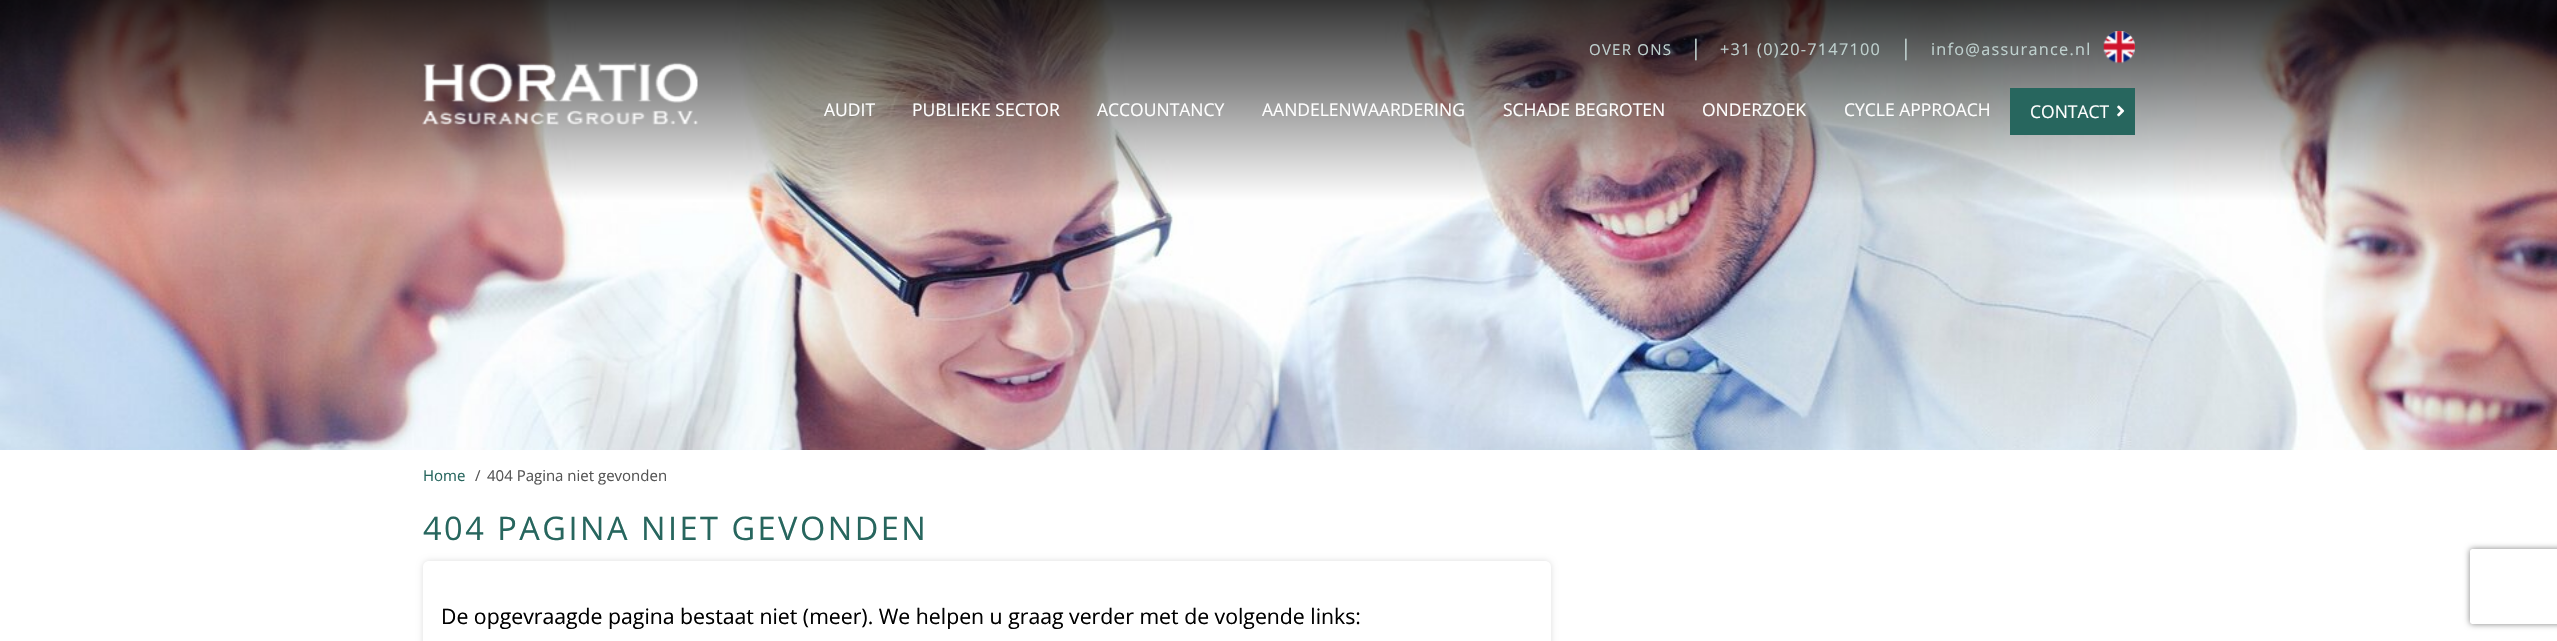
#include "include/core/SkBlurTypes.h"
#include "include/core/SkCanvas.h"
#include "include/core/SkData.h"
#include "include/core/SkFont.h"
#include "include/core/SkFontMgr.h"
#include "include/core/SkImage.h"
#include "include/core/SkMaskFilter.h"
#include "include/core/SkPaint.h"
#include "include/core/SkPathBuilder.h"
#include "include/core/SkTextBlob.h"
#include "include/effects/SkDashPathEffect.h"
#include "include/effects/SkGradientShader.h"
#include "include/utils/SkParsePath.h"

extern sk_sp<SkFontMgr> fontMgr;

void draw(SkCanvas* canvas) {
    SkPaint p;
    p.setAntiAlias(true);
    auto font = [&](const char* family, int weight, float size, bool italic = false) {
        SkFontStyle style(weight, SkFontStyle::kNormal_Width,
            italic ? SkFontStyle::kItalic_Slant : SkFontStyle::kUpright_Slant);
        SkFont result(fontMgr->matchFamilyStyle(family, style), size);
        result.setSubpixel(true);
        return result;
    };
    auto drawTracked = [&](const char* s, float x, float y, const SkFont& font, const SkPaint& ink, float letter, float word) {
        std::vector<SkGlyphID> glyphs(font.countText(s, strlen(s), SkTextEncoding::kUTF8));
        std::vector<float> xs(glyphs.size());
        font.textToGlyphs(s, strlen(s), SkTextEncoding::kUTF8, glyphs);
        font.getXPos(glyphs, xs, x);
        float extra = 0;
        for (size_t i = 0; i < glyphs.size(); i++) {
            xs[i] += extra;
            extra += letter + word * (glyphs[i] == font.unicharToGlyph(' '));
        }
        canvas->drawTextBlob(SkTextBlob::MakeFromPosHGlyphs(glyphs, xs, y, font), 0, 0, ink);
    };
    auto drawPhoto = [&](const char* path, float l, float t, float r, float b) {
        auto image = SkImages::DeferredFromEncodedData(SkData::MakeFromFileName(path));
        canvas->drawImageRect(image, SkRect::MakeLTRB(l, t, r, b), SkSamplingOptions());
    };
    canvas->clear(0xFFFFFFFF);
    drawPhoto("media/1.png", 0, 0, 2557, 450);
    auto font1 = font("Open Sans", 400, 15);
    p.setColor(0xFFBFD1CF);
    drawTracked("OVER ONS", 1589, 55, font1, p, 1.25f, 0);
    auto font2 = font("Open Sans", 400, 21.25f);
    canvas->drawString("|", 1690, 55, font2, p);
    auto font3 = font("Open Sans", 400, 16.25f);
    drawTracked("+31 (0)20-7147100", 1720, 55, font3, p, 1.25f, 0);
    canvas->drawString("|", 1900, 55, font2, p);
    drawTracked("info@assurance.nl", 1931, 55, font3, p, 1.25f, 0);
    drawPhoto("media/2.png", 2103, 31, 2135, 64);
    drawPhoto("media/3.png", 422, 62, 698, 125);
    auto font4 = font("Open Sans", 400, 17.5f);
    p.setColor(0xFFFFFFFF);
    {
        const struct { const char* s; float x, y; } items[] = {
            {"AUDIT", 824, 116},
            {"PUBLIEKE SECTOR", 912, 116},
            {"ACCOUNTANCY", 1097, 116},
            {"AANDELENWAARDERING", 1262, 116},
            {"SCHADE BEGROTEN", 1503, 116},
            {"ONDERZOEK", 1702, 116},
            {"CYCLE APPROACH", 1844, 116},
        };
        for (auto [s, x, y] : items) {
            canvas->drawString(s, x, y, font4, p);
        }
    }
    p.setColor(0xFF27665E);
    canvas->drawRect(SkRect::MakeLTRB(2010, 88, 2135, 135), p);
    p.setColor(0xFFFFFFFF);
    canvas->drawString("CONTACT", 2030, 118, font4, p);
    drawPhoto("media/4.png", 2117, 105, 2125, 117);
    p.setColor(0xFF27665E);
    canvas->drawString("Home", 423, 481, font1, p);
    p.setColor(0xFF555555);
    canvas->drawString("/", 475, 481, font1, p);
    canvas->drawString("404 Pagina niet gevonden", 487, 481, font1, p);
    auto font5 = font("Open Sans", 400, 32.5f);
    p.setColor(0xFF27665E);
    drawTracked("404 PAGINA NIET GEVONDEN", 423, 540, font5, p, 2.5f, 0);
    canvas->save();
    canvas->clipPath(SkPathBuilder(SkPathFillType::kEvenOdd).moveTo(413, 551).lineTo(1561, 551).lineTo(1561, 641).lineTo(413, 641).close().moveTo(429, 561).lineTo(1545, 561).cubicTo(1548.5f, 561, 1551, 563.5f, 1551, 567).lineTo(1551, 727).cubicTo(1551, 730.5f, 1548.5f, 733, 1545, 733).lineTo(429, 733).cubicTo(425.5f, 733, 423, 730.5f, 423, 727).lineTo(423, 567).cubicTo(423, 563.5f, 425.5f, 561, 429, 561).close().detach(), true);
    p.setColor(0xFFDDDDDD);
    p.setMaskFilter(SkMaskFilter::MakeBlur(kNormal_SkBlurStyle, 3));
    canvas->drawRoundRect(SkRect::MakeLTRB(423, 561, 1551, 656), 6, 6, p);
    p.setMaskFilter(nullptr);
    canvas->restore();
    p.setColor(0xFF000000);
    canvas->drawString("De opgevraagde pagina bestaat niet (meer). We helpen u graag verder met de volgende links:", 441, 624, font2, p);
    canvas->save();
    canvas->clipPath(SkPathBuilder(SkPathFillType::kEvenOdd).moveTo(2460, 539).lineTo(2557, 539).lineTo(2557, 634).lineTo(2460, 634).close().moveTo(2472.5f, 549).lineTo(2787.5f, 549).cubicTo(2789, 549, 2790, 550, 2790, 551.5f).lineTo(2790, 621.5f).cubicTo(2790, 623, 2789, 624, 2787.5f, 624).lineTo(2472.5f, 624).cubicTo(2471, 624, 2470, 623, 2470, 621.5f).lineTo(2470, 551.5f).cubicTo(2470, 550, 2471, 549, 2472.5f, 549).close().detach(), true);
    p.setColor(0xFF808080);
    p.setMaskFilter(SkMaskFilter::MakeBlur(kNormal_SkBlurStyle, 3));
    canvas->drawRoundRect(SkRect::MakeLTRB(2470, 549, 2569, 624), 2.5f, 2.5f, p);
    p.setMaskFilter(nullptr);
    canvas->restore();
}
